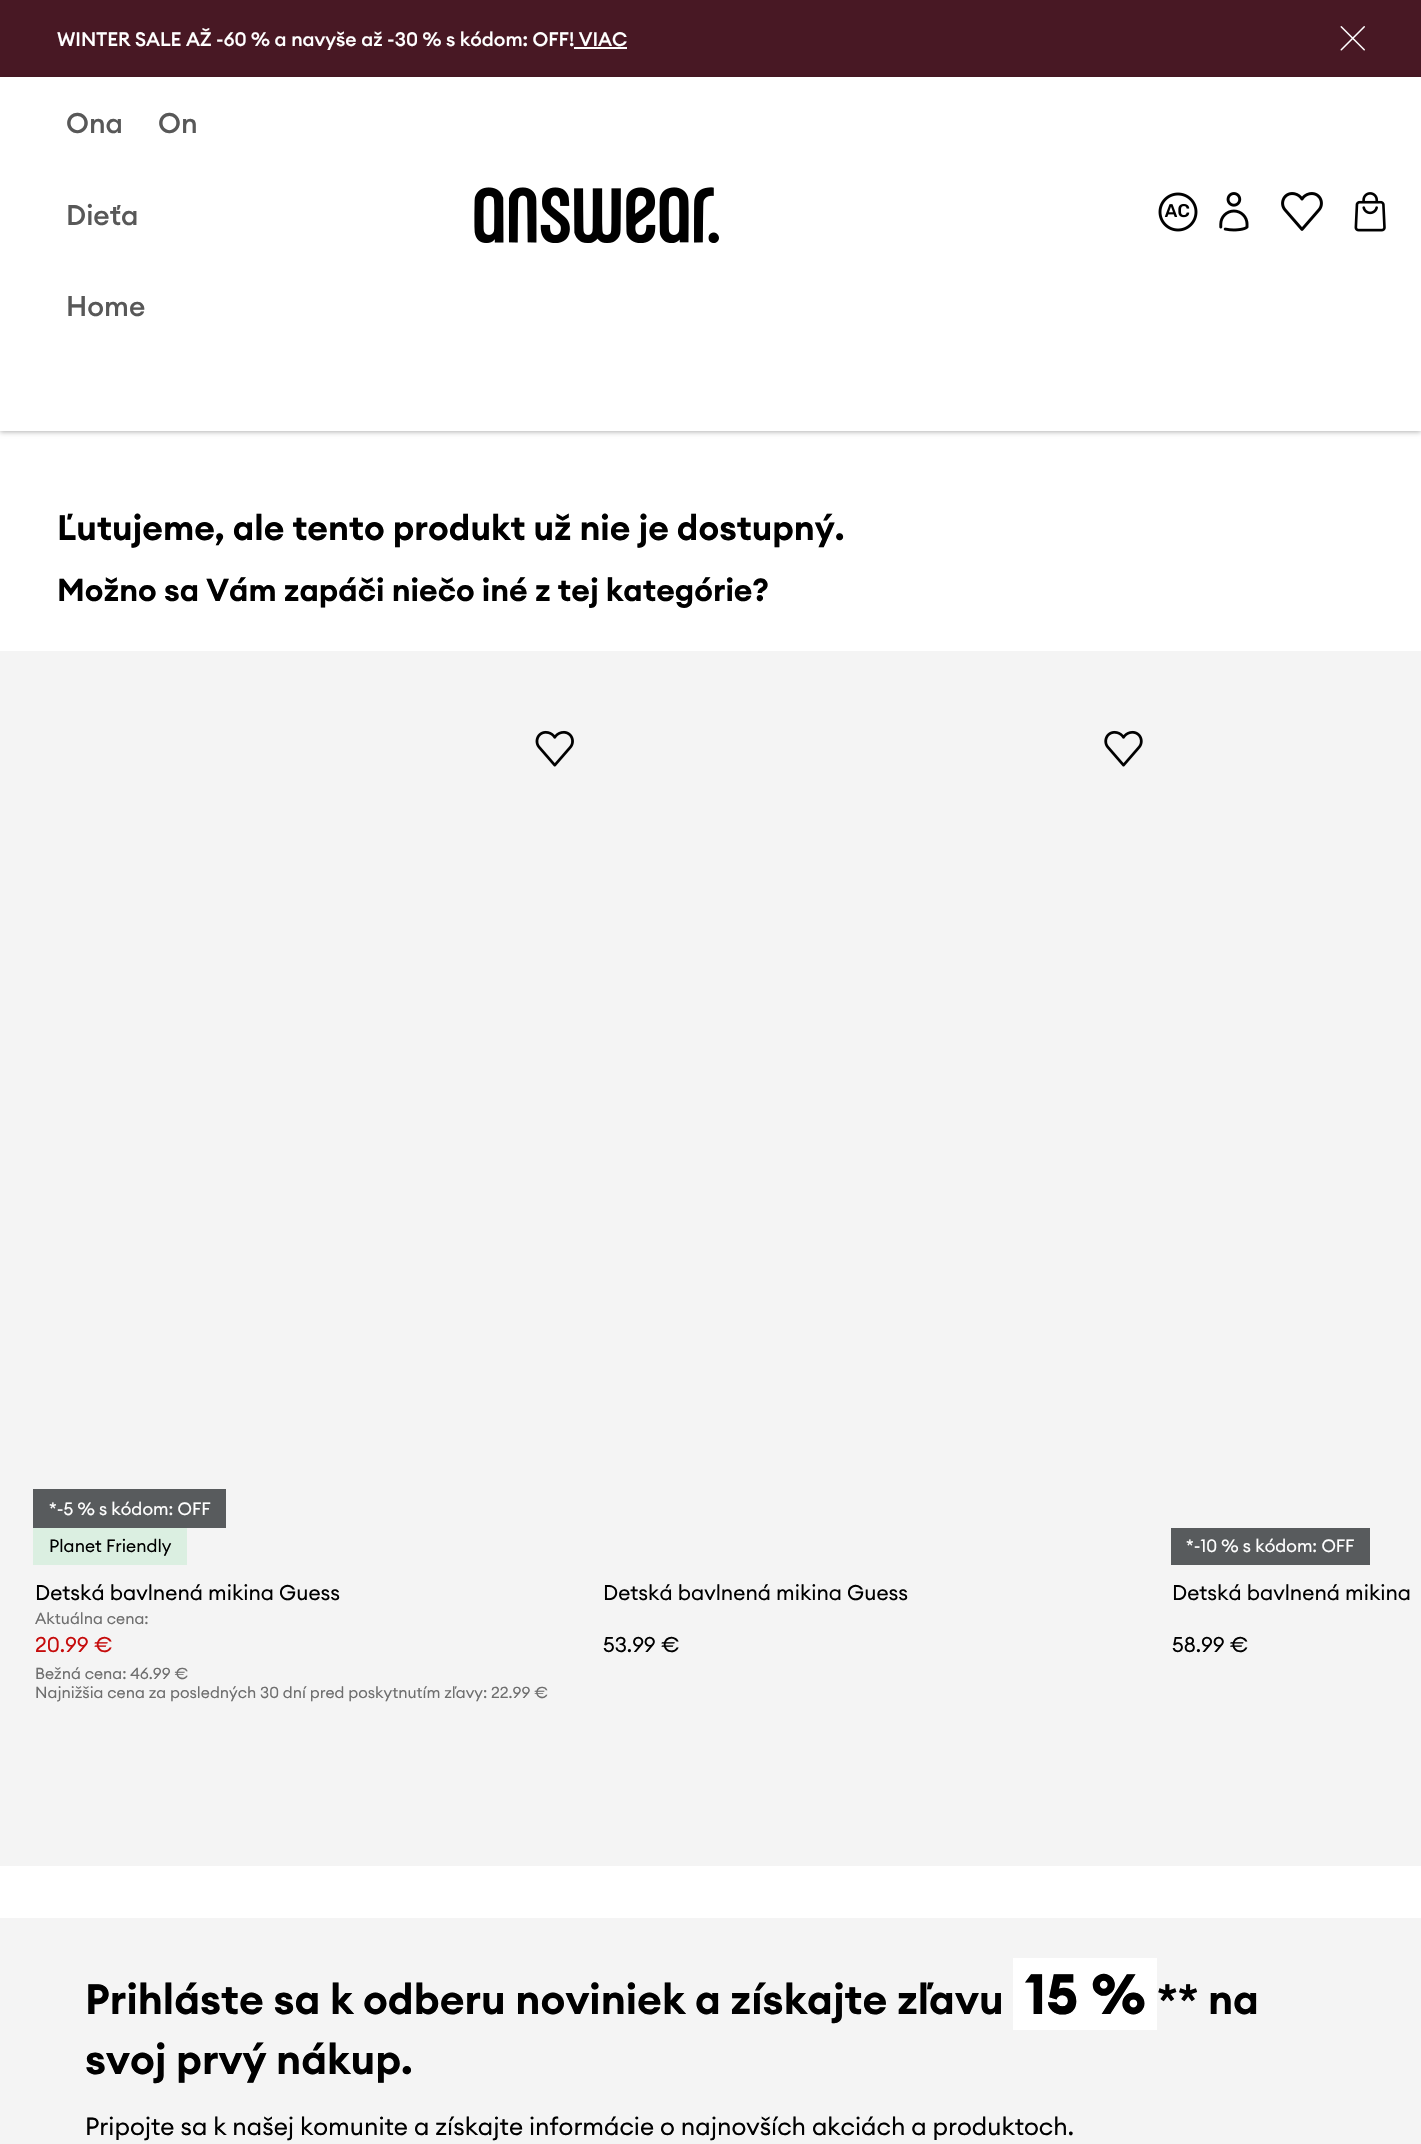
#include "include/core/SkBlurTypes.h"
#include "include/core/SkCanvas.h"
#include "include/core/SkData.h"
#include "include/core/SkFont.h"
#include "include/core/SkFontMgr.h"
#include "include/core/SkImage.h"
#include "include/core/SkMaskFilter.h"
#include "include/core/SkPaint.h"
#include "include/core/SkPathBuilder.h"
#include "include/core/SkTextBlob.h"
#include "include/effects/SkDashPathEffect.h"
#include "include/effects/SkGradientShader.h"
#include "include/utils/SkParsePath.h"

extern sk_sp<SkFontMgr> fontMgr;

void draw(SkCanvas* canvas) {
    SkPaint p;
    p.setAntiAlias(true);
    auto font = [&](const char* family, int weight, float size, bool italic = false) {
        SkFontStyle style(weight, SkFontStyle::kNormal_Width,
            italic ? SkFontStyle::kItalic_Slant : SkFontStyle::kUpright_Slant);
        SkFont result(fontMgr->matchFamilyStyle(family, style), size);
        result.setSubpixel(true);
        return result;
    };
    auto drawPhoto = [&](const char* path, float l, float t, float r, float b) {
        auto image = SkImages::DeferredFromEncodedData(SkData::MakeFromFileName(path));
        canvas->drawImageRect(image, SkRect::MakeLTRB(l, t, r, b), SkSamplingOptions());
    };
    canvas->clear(0xFFFFFFFF);
    p.setColor(0xFF481824);
    canvas->drawRect(SkRect::MakeLTRB(0, 0, 1421, 77), p);
    auto font1 = font("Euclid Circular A", 500, 19.25f);
    p.setColor(0xFFFFFFFF);
    canvas->drawString("WINTER SALE AŽ -60 % a navyše až -30 % s kódom: OFF! VIAC", 57, 46, font1, p);
    canvas->drawRect(SkRect::MakeLTRB(574, 47, 627, 49), p);
    drawPhoto("media/1.png", 1340, 26, 1365, 51);
    p.setColor(0x4D000000);
    p.setMaskFilter(SkMaskFilter::MakeBlur(kNormal_SkBlurStyle, 2.5f));
    canvas->drawRect(SkRect::MakeLTRB(0, 79, 1421, 432), p);
    p.setMaskFilter(nullptr);
    p.setColor(0xFFFFFFFF);
    canvas->drawRect(SkRect::MakeLTRB(0, 77, 1421, 431), p);
    auto font2 = font("Euclid Circular A", 500, 28);
    p.setColor(0xFF585858);
    {
        const struct { const char* s; float x, y; } items[] = {
            {"Ona", 66, 133},
            {"On", 158, 133},
            {"Dieťa", 66, 225},
            {"Home", 66, 316},
        };
        for (auto [s, x, y] : items) {
            canvas->drawString(s, x, y, font2, p);
        }
    }
    drawPhoto("media/2.png", 474, 187, 719, 243);
    drawPhoto("media/3.png", 1158, 192, 1198, 232);
    drawPhoto("media/4.png", 1219, 192, 1249, 232);
    drawPhoto("media/5.png", 1281, 192, 1323, 231);
    drawPhoto("media/6.png", 1354, 192, 1386, 232);
    auto font3 = font("Euclid Circular A", 600, 35);
    p.setColor(0xFF000000);
    canvas->drawString("Ľutujeme, ale tento produkt už nie je dostupný.", 57, 540, font3, p);
    auto font4 = font("Euclid Circular A", 600, 31.5f);
    canvas->drawString("Možno sa Vám zapáči niečo iné z tej kategórie?", 57, 601, font4, p);
    p.setColor(0xFFF4F4F4);
    canvas->drawRect(SkRect::MakeLTRB(0, 651, 1421, 1866), p);
    drawPhoto("media/7.png", 535, 730, 574, 767);
    p.setColor(0xFF585B5D);
    canvas->drawRect(SkRect::MakeLTRB(33, 1489, 226, 1528), p);
    auto font5 = font("Euclid Circular A", 400, 17.5f);
    p.setColor(0xFFFFFFFF);
    canvas->drawString("*-5 % s kódom: OFF", 49, 1515, font5, p);
    p.setColor(0xFFDBEFE1);
    canvas->drawRect(SkRect::MakeLTRB(33, 1528, 187, 1565), p);
    p.setColor(0xFF000000);
    canvas->drawString("Planet Friendly", 49, 1552, font5, p);
    auto font6 = font("Euclid Circular A", 400, 21);
    canvas->drawString("Detská bavlnená mikina Guess", 35, 1600, font6, p);
    auto font7 = font("Euclid Circular A", 400, 15.75f);
    p.setColor(0xFF6E6E6E);
    canvas->drawString("Aktuálna cena:", 35, 1624, font7, p);
    p.setColor(0xFFC60C0C);
    canvas->drawString("20.99 €", 35, 1652, font6, p);
    p.setColor(0xFF6E6E6E);
    canvas->drawString("Bežná cena: 46.99 €", 35, 1679, font7, p);
    canvas->drawString("Najnižšia cena za posledných 30 dní pred poskytnutím zľavy: 22.99 €", 35, 1698, font7, p);
    drawPhoto("media/8.png", 1104, 730, 1143, 767);
    p.setColor(0xFF000000);
    canvas->drawString("Detská bavlnená mikina Guess", 603, 1600, font6, p);
    canvas->drawString("53.99 €", 603, 1652, font6, p);
    p.setColor(0xFF585B5D);
    canvas->drawRect(SkRect::MakeLTRB(1171, 1528, 1370, 1565), p);
    p.setColor(0xFFFFFFFF);
    canvas->drawString("*-10 % s kódom: OFF", 1186, 1552, font5, p);
    p.setColor(0xFF000000);
    canvas->drawString("Detská bavlnená mikina", 1172, 1600, font6, p);
    canvas->drawString("58.99 €", 1172, 1652, font6, p);
    p.setColor(0xFFF4F4F4);
    canvas->drawRect(SkRect::MakeLTRB(0, 1918, 1421, 2144), p);
    auto font8 = font("Euclid Circular A", 600, 42);
    p.setColor(0xFF000000);
    canvas->drawString("Prihláste sa k odberu noviniek a získajte zľavu", 85, 2014, font8, p);
    p.setColor(0xFFFFFFFF);
    canvas->drawRect(SkRect::MakeLTRB(1013, 1958, 1157, 2030), p);
    auto font9 = font("Euclid Circular A", 700, 56);
    p.setColor(0xFF000000);
    canvas->drawString("15 %", 1025, 2014, font9, p);
    canvas->drawString("** na", 1157, 2014, font8, p);
    canvas->drawString("svoj prvý nákup.", 85, 2074, font8, p);
    auto font10 = font("Euclid Circular A", 400, 24.5f);
    canvas->drawString("Pripojte sa k našej komunite a získajte informácie o najnovších akciách a produktoch.", 85, 2135, font10, p);
}
